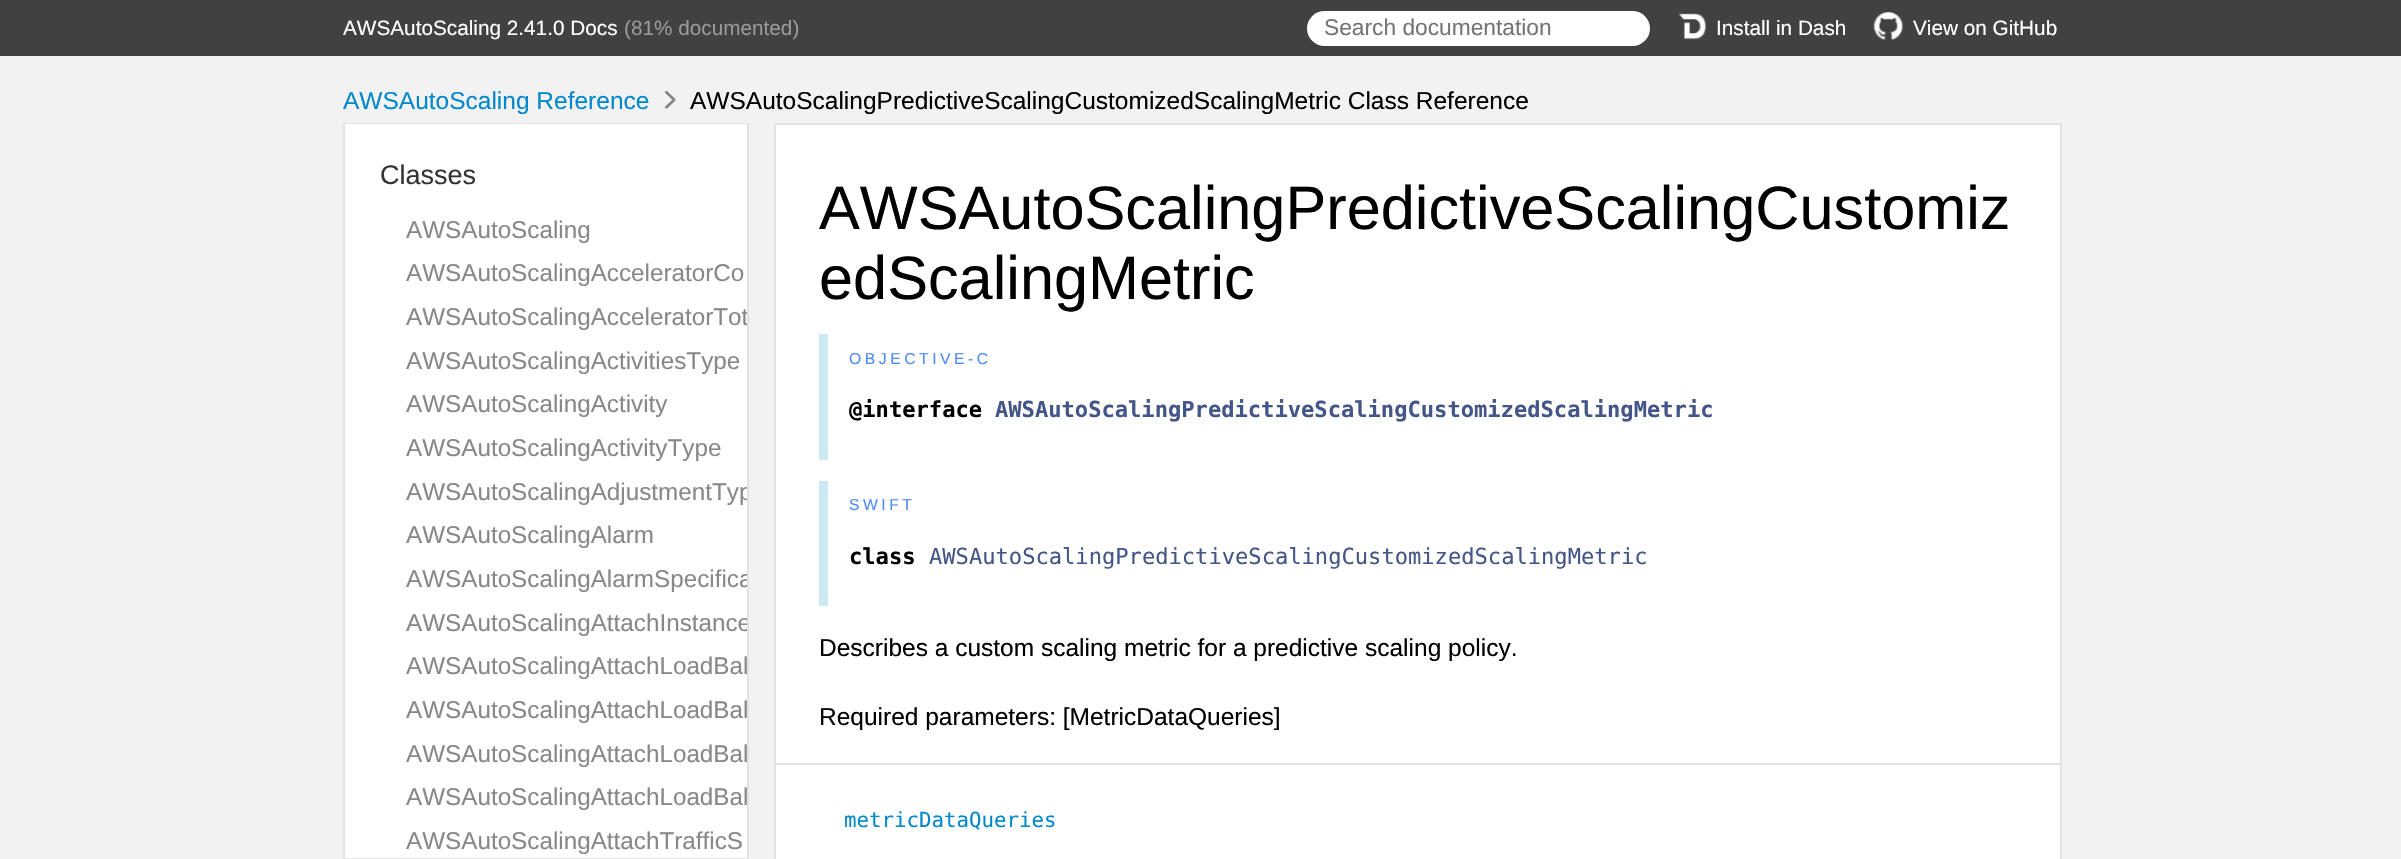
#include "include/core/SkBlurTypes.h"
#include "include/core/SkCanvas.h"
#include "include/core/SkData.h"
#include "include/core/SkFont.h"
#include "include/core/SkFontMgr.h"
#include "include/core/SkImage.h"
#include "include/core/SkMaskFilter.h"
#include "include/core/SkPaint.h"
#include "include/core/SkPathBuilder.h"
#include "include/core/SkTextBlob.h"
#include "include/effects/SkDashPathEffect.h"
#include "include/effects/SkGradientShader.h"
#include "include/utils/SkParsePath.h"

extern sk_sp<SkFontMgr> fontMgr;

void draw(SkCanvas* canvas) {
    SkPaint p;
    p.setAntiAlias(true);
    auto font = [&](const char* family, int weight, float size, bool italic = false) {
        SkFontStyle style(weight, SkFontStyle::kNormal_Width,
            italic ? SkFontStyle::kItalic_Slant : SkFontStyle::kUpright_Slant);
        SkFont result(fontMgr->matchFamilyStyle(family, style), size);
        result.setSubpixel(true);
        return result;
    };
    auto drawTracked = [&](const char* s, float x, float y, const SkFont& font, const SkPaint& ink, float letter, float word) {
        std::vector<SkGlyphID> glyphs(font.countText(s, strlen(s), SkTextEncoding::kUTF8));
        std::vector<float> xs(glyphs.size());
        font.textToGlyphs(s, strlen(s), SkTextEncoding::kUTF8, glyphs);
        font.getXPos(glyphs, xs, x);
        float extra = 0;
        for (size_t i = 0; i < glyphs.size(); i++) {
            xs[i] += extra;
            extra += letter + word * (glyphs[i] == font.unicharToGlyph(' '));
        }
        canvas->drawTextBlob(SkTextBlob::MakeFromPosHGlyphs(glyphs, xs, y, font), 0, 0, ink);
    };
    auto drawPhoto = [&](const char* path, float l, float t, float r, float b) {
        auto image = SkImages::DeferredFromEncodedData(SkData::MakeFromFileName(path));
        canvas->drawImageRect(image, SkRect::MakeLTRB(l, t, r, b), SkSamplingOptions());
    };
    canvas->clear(0xFFF2F2F2);
    p.setColor(0xFF414141);
    canvas->drawRect(SkRect::MakeLTRB(0, 0, 2401, 56), p);
    auto font1 = font("Liberation Sans", 400, 20.75f);
    p.setColor(0xFFFFFFFF);
    canvas->drawString("AWSAutoScaling 2.41.0 Docs", 343, 35, font1, p);
    p.setColor(0xFF999999);
    canvas->drawString("(81% documented)", 624, 35, font1, p);
    p.setColor(0xFFFFFFFF);
    canvas->drawRoundRect(SkRect::MakeLTRB(1307, 11, 1650, 46), 17.5f, 17.5f, p);
    auto font2 = font("Liberation Sans", 400, 22.75f);
    p.setColor(0xFF757575);
    canvas->drawString("Search documentation", 1324, 35, font2, p);
    drawPhoto("media/1.png", 1678, 13, 1706, 40);
    p.setColor(0xFFFFFFFF);
    canvas->drawString("Install in Dash", 1716, 35, font1, p);
    drawPhoto("media/2.png", 1873, 12, 1903, 41);
    canvas->drawString("View on GitHub", 1913, 35, font1, p);
    auto font3 = font("Liberation Sans", 400, 24.5f);
    p.setColor(0xFF0088CC);
    canvas->drawString("AWSAutoScaling Reference", 343, 109, font3, p);
    drawPhoto("media/3.png", 664, 91, 676, 109);
    p.setColor(0xFF000000);
    canvas->drawString("AWSAutoScalingPredictiveScalingCustomizedScalingMetric Class Reference", 690, 109, font3, p);
    p.setStyle(SkPaint::kStroke_Style);
    p.setStrokeWidth(2);
    p.setColor(0xFFE2E2E2);
    canvas->drawRect(SkRect::MakeLTRB(344, 124, 748, 858), p);
    p.setStyle(SkPaint::kFill_Style);
    p.setColor(0xFFFFFFFF);
    canvas->drawRect(SkRect::MakeLTRB(345, 124, 747, 858), p);
    auto font4 = font("Liberation Sans", 400, 27);
    p.setColor(0xFF333333);
    canvas->drawString("Classes", 380, 184, font4, p);
    auto font5 = font("Liberation Sans", 400, 24.25f);
    p.setColor(0xFF888888);
    canvas->drawString("AWSAutoScaling", 406, 238, font5, p);
    canvas->drawString("AWSAutoScalingAcceleratorCo", 406, 281, font5, p);
    canvas->save();
    canvas->clipRect(SkRect::MakeLTRB(345, 124, 747, 858));
    canvas->drawString("AWSAutoScalingAcceleratorTot", 406, 325, font5, p);
    canvas->restore();
    {
        const struct { const char* s; float x, y; } items[] = {
            {"AWSAutoScalingActivitiesType", 406, 369},
            {"AWSAutoScalingActivity", 406, 412},
            {"AWSAutoScalingActivityType", 406, 456},
        };
        for (auto [s, x, y] : items) {
            canvas->drawString(s, x, y, font5, p);
        }
    }
    canvas->save();
    canvas->clipRect(SkRect::MakeLTRB(345, 124, 747, 858));
    canvas->drawString("AWSAutoScalingAdjustmentTyp", 406, 500, font5, p);
    canvas->restore();
    canvas->drawString("AWSAutoScalingAlarm", 406, 543, font5, p);
    canvas->save();
    canvas->clipRect(SkRect::MakeLTRB(345, 124, 747, 858));
    canvas->drawString("AWSAutoScalingAlarmSpecifica", 406, 587, font5, p);
    canvas->drawString("AWSAutoScalingAttachInstance", 406, 631, font5, p);
    canvas->restore();
    {
        const struct { const char* s; float x, y; } items[] = {
            {"AWSAutoScalingAttachLoadBal", 406, 674},
            {"AWSAutoScalingAttachLoadBal", 406, 718},
            {"AWSAutoScalingAttachLoadBal", 406, 762},
            {"AWSAutoScalingAttachLoadBal", 406, 805},
            {"AWSAutoScalingAttachTrafficS", 406, 849},
        };
        for (auto [s, x, y] : items) {
            canvas->drawString(s, x, y, font5, p);
        }
    }
    p.setColor(0xFFFFFFFF);
    canvas->drawRect(SkRect::MakeLTRB(775, 124, 2061, 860), p);
    p.setStyle(SkPaint::kStroke_Style);
    p.setColor(0xFFE2E2E2);
    canvas->drawRect(SkRect::MakeLTRB(775, 124, 2061, 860), p);
    auto font6 = font("Liberation Sans", 400, 61.25f);
    p.setStyle(SkPaint::kFill_Style);
    p.setColor(0xFF000000);
    canvas->drawString("AWSAutoScalingPredictiveScalingCustomiz", 819, 229, font6, p);
    canvas->drawString("edScalingMetric", 819, 299, font6, p);
    p.setColor(0xFFCDE9F4);
    canvas->drawRect(SkRect::MakeLTRB(819, 334, 828, 460), p);
    auto font7 = font("Liberation Sans", 400, 15.75f);
    p.setColor(0xFF4B8AFB);
    drawTracked("OBJECTIVE-C", 849, 364, font7, p, 3.5f, 0);
    auto font8 = font("DejaVu Sans Mono", 700, 22.1f);
    p.setColor(0xFF000000);
    canvas->drawString("@interface", 849, 417, font8, p);
    p.setColor(0xFF445588);
    canvas->drawString("AWSAutoScalingPredictiveScalingCustomizedScalingMetric", 995, 417, font8, p);
    p.setColor(0xFFCDE9F4);
    canvas->drawRect(SkRect::MakeLTRB(819, 481, 828, 606), p);
    p.setColor(0xFF4B8AFB);
    drawTracked("SWIFT", 849, 510, font7, p, 3.5f, 0);
    p.setColor(0xFF000000);
    canvas->drawString("class", 849, 564, font8, p);
    auto font9 = font("DejaVu Sans Mono", 400, 22.1f);
    p.setColor(0xFF445588);
    canvas->drawString("AWSAutoScalingPredictiveScalingCustomizedScalingMetric", 929, 564, font9, p);
    p.setColor(0xFF000000);
    canvas->drawString("Describes a custom scaling metric for a predictive scaling policy.", 819, 656, font3, p);
    canvas->drawString("Required parameters: [MetricDataQueries]", 819, 725, font3, p);
    p.setColor(0xFFE2E2E2);
    canvas->drawRect(SkRect::MakeLTRB(775, 763, 2060, 765), p);
    auto font10 = font("DejaVu Sans Mono", 400, 20.75f);
    p.setColor(0xFF0088CC);
    canvas->drawString("metricDataQueries", 844, 827, font10, p);
}
